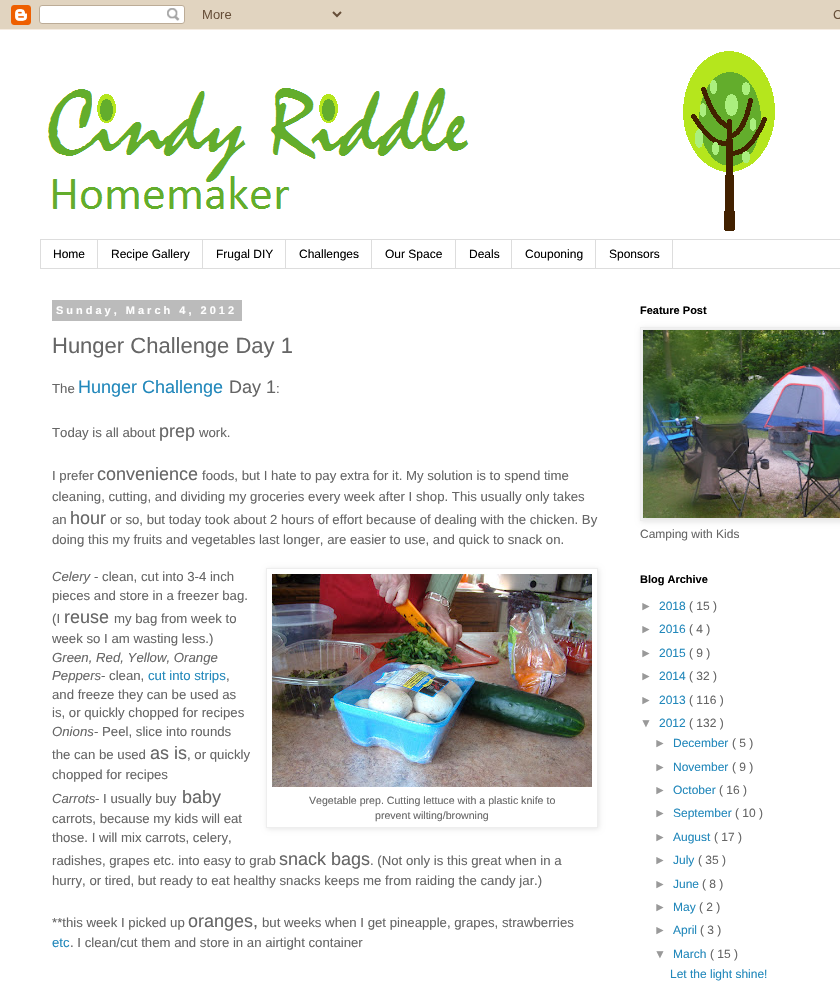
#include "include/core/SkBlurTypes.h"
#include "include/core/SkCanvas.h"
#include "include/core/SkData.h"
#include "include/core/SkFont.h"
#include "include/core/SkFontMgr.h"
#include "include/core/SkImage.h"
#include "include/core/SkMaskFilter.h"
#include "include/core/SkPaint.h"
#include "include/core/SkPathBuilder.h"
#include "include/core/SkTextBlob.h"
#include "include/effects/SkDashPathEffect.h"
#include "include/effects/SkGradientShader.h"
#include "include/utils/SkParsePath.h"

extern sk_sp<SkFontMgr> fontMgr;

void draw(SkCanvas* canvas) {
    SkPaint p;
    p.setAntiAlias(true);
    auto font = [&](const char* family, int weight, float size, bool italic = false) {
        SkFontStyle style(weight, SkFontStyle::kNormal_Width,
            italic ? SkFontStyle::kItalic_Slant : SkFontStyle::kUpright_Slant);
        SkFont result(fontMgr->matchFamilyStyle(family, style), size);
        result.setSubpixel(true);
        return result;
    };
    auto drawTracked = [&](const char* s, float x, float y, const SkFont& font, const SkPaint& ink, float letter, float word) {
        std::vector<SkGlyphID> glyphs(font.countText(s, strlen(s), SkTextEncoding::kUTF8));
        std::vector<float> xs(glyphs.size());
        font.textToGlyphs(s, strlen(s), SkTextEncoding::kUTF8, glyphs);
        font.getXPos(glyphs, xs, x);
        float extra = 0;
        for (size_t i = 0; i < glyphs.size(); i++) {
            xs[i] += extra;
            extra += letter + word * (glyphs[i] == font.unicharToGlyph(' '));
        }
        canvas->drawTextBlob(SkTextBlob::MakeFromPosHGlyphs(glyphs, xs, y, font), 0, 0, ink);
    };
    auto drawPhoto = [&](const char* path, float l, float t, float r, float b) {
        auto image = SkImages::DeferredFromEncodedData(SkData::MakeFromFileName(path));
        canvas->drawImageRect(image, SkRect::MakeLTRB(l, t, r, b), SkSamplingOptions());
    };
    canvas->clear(0xFFFFFFFF);
    drawPhoto("media/1.png", 0, 0, 840, 30);
    drawPhoto("media/2.png", 48, 51, 775, 231);
    p.setStyle(SkPaint::kStroke_Style);
    p.setStrokeWidth(1);
    p.setColor(0xFFDDDDDD);
    canvas->drawRect(SkRect::MakeLTRB(40.5f, 239.5f, 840.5f, 268.5f), p);
    p.setStyle(SkPaint::kFill_Style);
    canvas->drawRect(SkRect::MakeLTRB(97, 240, 98, 268), p);
    auto font1 = font("Liberation Sans", 400, 12);
    p.setColor(0xFF000000);
    canvas->drawString("Home", 53, 258, font1, p);
    p.setColor(0xFFDDDDDD);
    canvas->drawRect(SkRect::MakeLTRB(202, 240, 203, 268), p);
    p.setColor(0xFF000000);
    canvas->drawString("Recipe Gallery", 111, 258, font1, p);
    p.setColor(0xFFDDDDDD);
    canvas->drawRect(SkRect::MakeLTRB(285, 240, 286, 268), p);
    p.setColor(0xFF000000);
    canvas->drawString("Frugal DIY", 216, 258, font1, p);
    p.setColor(0xFFDDDDDD);
    canvas->drawRect(SkRect::MakeLTRB(371, 240, 372, 268), p);
    p.setColor(0xFF000000);
    canvas->drawString("Challenges", 299, 258, font1, p);
    p.setColor(0xFFDDDDDD);
    canvas->drawRect(SkRect::MakeLTRB(455, 240, 456, 268), p);
    p.setColor(0xFF000000);
    canvas->drawString("Our Space", 385, 258, font1, p);
    p.setColor(0xFFDDDDDD);
    canvas->drawRect(SkRect::MakeLTRB(511, 240, 512, 268), p);
    p.setColor(0xFF000000);
    canvas->drawString("Deals", 469, 258, font1, p);
    p.setColor(0xFFDDDDDD);
    canvas->drawRect(SkRect::MakeLTRB(595, 240, 596, 268), p);
    p.setColor(0xFF000000);
    canvas->drawString("Couponing", 525, 258, font1, p);
    p.setColor(0xFFDDDDDD);
    canvas->drawRect(SkRect::MakeLTRB(672, 240, 673, 268), p);
    p.setColor(0xFF000000);
    canvas->drawString("Sponsors", 609, 258, font1, p);
    p.setColor(0xFFBBBBBB);
    canvas->drawRect(SkRect::MakeLTRB(52, 300, 242, 321), p);
    auto font2 = font("Liberation Sans", 700, 11);
    p.setColor(0xFFFFFFFF);
    drawTracked("Sunday, March 4, 2012", 56, 314, font2, p, 3, 0);
    auto font3 = font("Liberation Sans", 400, 22);
    p.setColor(0xFF666666);
    canvas->drawString("Hunger Challenge Day 1", 52, 353, font3, p);
    auto font4 = font("Liberation Sans", 400, 13.2f);
    canvas->drawString("The", 52, 393, font4, p);
    auto font5 = font("Liberation Sans", 400, 18);
    p.setColor(0xFF2288BB);
    canvas->drawString("Hunger Challenge", 78, 393, font5, p);
    p.setColor(0xFF666666);
    canvas->drawString("Day 1", 229, 393, font5, p);
    canvas->drawString(":", 276, 393, font4, p);
    canvas->drawString("Today is all about", 52, 437, font4, p);
    canvas->drawString("prep", 159, 437, font5, p);
    canvas->drawString("work.", 199, 437, font4, p);
    canvas->drawString("I prefer", 52, 480, font4, p);
    canvas->drawString("convenience", 97, 480, font5, p);
    {
        const struct { const char* s; float x, y; } items[] = {
            {"foods, but I hate to pay extra for it. My solution is to spend time", 202, 480},
            {"cleaning, cutting, and dividing my groceries every week after I shop. This usually only takes", 52, 501},
            {"an", 52, 524},
        };
        for (auto [s, x, y] : items) {
            canvas->drawString(s, x, y, font4, p);
        }
    }
    canvas->drawString("hour", 70, 524, font5, p);
    canvas->drawString("or so, but today took about 2 hours of effort because of dealing with the chicken. By", 110, 524, font4, p);
    canvas->drawString("doing this my fruits and vegetables last longer, are easier to use, and quick to snack on.", 52, 544, font4, p);
    auto font6 = font("Liberation Sans", 400, 13.2f, true);
    canvas->drawString("Celery", 52, 581, font6, p);
    {
        const struct { const char* s; float x, y; } items[] = {
            {"- clean, cut into 3-4 inch", 94, 581},
            {"pieces and store in a freezer bag.", 52, 600},
            {"(I", 52, 623},
        };
        for (auto [s, x, y] : items) {
            canvas->drawString(s, x, y, font4, p);
        }
    }
    canvas->drawString("reuse", 64, 623, font5, p);
    canvas->drawString("my bag from week to", 114, 623, font4, p);
    canvas->drawString("week so I am wasting less.)", 52, 643, font4, p);
    canvas->drawString("Green, Red, Yellow, Orange", 52, 662, font6, p);
    canvas->drawString("Peppers", 52, 680, font6, p);
    canvas->drawString("- clean,", 101, 680, font4, p);
    p.setColor(0xFF2288BB);
    canvas->drawString("cut into strips", 148, 680, font4, p);
    p.setColor(0xFF666666);
    {
        const struct { const char* s; float x, y; } items[] = {
            {",", 226, 680},
            {"and freeze they can be used as", 52, 699},
            {"is, or quickly chopped for recipes", 52, 717},
        };
        for (auto [s, x, y] : items) {
            canvas->drawString(s, x, y, font4, p);
        }
    }
    canvas->drawString("Onions", 52, 736, font6, p);
    canvas->drawString("- Peel, slice into rounds", 94, 736, font4, p);
    canvas->drawString("the can be used", 52, 759, font4, p);
    canvas->drawString("as is", 150, 759, font5, p);
    canvas->drawString(", or quickly", 187, 759, font4, p);
    canvas->drawString("chopped for recipes", 52, 779, font4, p);
    canvas->drawString("Carrots", 52, 803, font6, p);
    canvas->drawString("- I usually buy", 95, 803, font4, p);
    canvas->drawString("baby", 182, 803, font5, p);
    canvas->save();
    canvas->clipPath(SkPathBuilder(SkPathFillType::kEvenOdd).moveTo(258, 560).lineTo(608, 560).lineTo(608, 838).lineTo(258, 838).close().moveTo(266, 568).lineTo(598, 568).lineTo(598, 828).lineTo(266, 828).close().detach(), true);
    p.setColor(0x1A000000);
    p.setMaskFilter(SkMaskFilter::MakeBlur(kNormal_SkBlurStyle, 2.5f));
    canvas->drawRect(SkRect::MakeLTRB(267, 569, 599, 829), p);
    p.setMaskFilter(nullptr);
    canvas->restore();
    p.setStyle(SkPaint::kStroke_Style);
    p.setColor(0xFFEEEEEE);
    canvas->drawRect(SkRect::MakeLTRB(266.5f, 568.5f, 597.5f, 827.5f), p);
    drawPhoto("media/3.png", 272, 574, 592, 787);
    auto font7 = font("Liberation Sans", 400, 10.6f);
    p.setStyle(SkPaint::kFill_Style);
    p.setColor(0xFF666666);
    canvas->drawString("Vegetable prep. Cutting lettuce with a plastic knife to", 309, 804, font7, p);
    canvas->drawString("prevent wilting/browning", 375, 819, font7, p);
    {
        const struct { const char* s; float x, y; } items[] = {
            {"carrots, because my kids will eat", 52, 823},
            {"those. I will mix carrots, celery,", 52, 842},
            {"radishes, grapes etc. into easy to grab", 52, 865},
        };
        for (auto [s, x, y] : items) {
            canvas->drawString(s, x, y, font4, p);
        }
    }
    canvas->drawString("snack bags", 279, 865, font5, p);
    {
        const struct { const char* s; float x, y; } items[] = {
            {". (Not only is this great when in a", 370, 865},
            {"hurry, or tired, but ready to eat healthy snacks keeps me from raiding the candy jar.)", 52, 885},
            {"**this week I picked up", 52, 927},
        };
        for (auto [s, x, y] : items) {
            canvas->drawString(s, x, y, font4, p);
        }
    }
    canvas->drawString("oranges,", 188, 927, font5, p);
    canvas->drawString("but weeks when I get pineapple, grapes, strawberries", 262, 927, font4, p);
    p.setColor(0xFF2288BB);
    canvas->drawString("etc", 52, 947, font4, p);
    p.setColor(0xFF666666);
    canvas->drawString(". I clean/cut them and store in an airtight container", 70, 947, font4, p);
    p.setColor(0xFF000000);
    canvas->drawString("Feature Post", 640, 314, font2, p);
    p.setColor(0x1A000000);
    p.setMaskFilter(SkMaskFilter::MakeBlur(kNormal_SkBlurStyle, 2.5f));
    canvas->drawRect(SkRect::MakeLTRB(641, 328, 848, 522), p);
    p.setMaskFilter(nullptr);
    p.setStyle(SkPaint::kStroke_Style);
    p.setColor(0xFFEEEEEE);
    canvas->drawRect(SkRect::MakeLTRB(640.5f, 327.5f, 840.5f, 520.5f), p);
    drawPhoto("media/4.png", 643, 330, 840, 518);
    p.setStyle(SkPaint::kFill_Style);
    p.setColor(0xFF666666);
    canvas->drawString("Camping with Kids", 640, 538, font1, p);
    p.setColor(0xFF000000);
    canvas->drawString("Blog Archive", 640, 583, font2, p);
    p.setColor(0xFF999999);
    canvas->drawString("►", 640, 610, font1, p);
    p.setColor(0xFF2288BB);
    canvas->drawString("2018", 659, 610, font1, p);
    p.setColor(0xFF666666);
    canvas->drawString("( 15 )", 689, 610, font1, p);
    p.setColor(0xFF999999);
    canvas->drawString("►", 640, 633, font1, p);
    p.setColor(0xFF2288BB);
    canvas->drawString("2016", 659, 633, font1, p);
    p.setColor(0xFF666666);
    canvas->drawString("( 4 )", 689, 633, font1, p);
    p.setColor(0xFF999999);
    canvas->drawString("►", 640, 657, font1, p);
    p.setColor(0xFF2288BB);
    canvas->drawString("2015", 659, 657, font1, p);
    p.setColor(0xFF666666);
    canvas->drawString("( 9 )", 689, 657, font1, p);
    p.setColor(0xFF999999);
    canvas->drawString("►", 640, 680, font1, p);
    p.setColor(0xFF2288BB);
    canvas->drawString("2014", 659, 680, font1, p);
    p.setColor(0xFF666666);
    canvas->drawString("( 32 )", 689, 680, font1, p);
    p.setColor(0xFF999999);
    canvas->drawString("►", 640, 704, font1, p);
    p.setColor(0xFF2288BB);
    canvas->drawString("2013", 659, 704, font1, p);
    p.setColor(0xFF666666);
    canvas->drawString("( 116 )", 689, 704, font1, p);
    p.setColor(0xFF999999);
    canvas->drawString("▼", 640, 727, font1, p);
    p.setColor(0xFF2288BB);
    canvas->drawString("2012", 659, 727, font1, p);
    p.setColor(0xFF666666);
    canvas->drawString("( 132 )", 689, 727, font1, p);
    p.setColor(0xFF999999);
    canvas->drawString("►", 654, 747, font1, p);
    p.setColor(0xFF2288BB);
    canvas->drawString("December", 673, 747, font1, p);
    p.setColor(0xFF666666);
    canvas->drawString("( 5 )", 732, 747, font1, p);
    p.setColor(0xFF999999);
    canvas->drawString("►", 654, 771, font1, p);
    p.setColor(0xFF2288BB);
    canvas->drawString("November", 673, 771, font1, p);
    p.setColor(0xFF666666);
    canvas->drawString("( 9 )", 732, 771, font1, p);
    p.setColor(0xFF999999);
    canvas->drawString("►", 654, 794, font1, p);
    p.setColor(0xFF2288BB);
    canvas->drawString("October", 673, 794, font1, p);
    p.setColor(0xFF666666);
    canvas->drawString("( 16 )", 719, 794, font1, p);
    p.setColor(0xFF999999);
    canvas->drawString("►", 654, 817, font1, p);
    p.setColor(0xFF2288BB);
    canvas->drawString("September", 673, 817, font1, p);
    p.setColor(0xFF666666);
    canvas->drawString("( 10 )", 735, 817, font1, p);
    p.setColor(0xFF999999);
    canvas->drawString("►", 654, 841, font1, p);
    p.setColor(0xFF2288BB);
    canvas->drawString("August", 673, 841, font1, p);
    p.setColor(0xFF666666);
    canvas->drawString("( 17 )", 714, 841, font1, p);
    p.setColor(0xFF999999);
    canvas->drawString("►", 654, 864, font1, p);
    p.setColor(0xFF2288BB);
    canvas->drawString("July", 673, 864, font1, p);
    p.setColor(0xFF666666);
    canvas->drawString("( 35 )", 698, 864, font1, p);
    p.setColor(0xFF999999);
    canvas->drawString("►", 654, 888, font1, p);
    p.setColor(0xFF2288BB);
    canvas->drawString("June", 673, 888, font1, p);
    p.setColor(0xFF666666);
    canvas->drawString("( 8 )", 702, 888, font1, p);
    p.setColor(0xFF999999);
    canvas->drawString("►", 654, 911, font1, p);
    p.setColor(0xFF2288BB);
    canvas->drawString("May", 673, 911, font1, p);
    p.setColor(0xFF666666);
    canvas->drawString("( 2 )", 699, 911, font1, p);
    p.setColor(0xFF999999);
    canvas->drawString("►", 654, 934, font1, p);
    p.setColor(0xFF2288BB);
    canvas->drawString("April", 673, 934, font1, p);
    p.setColor(0xFF666666);
    canvas->drawString("( 3 )", 700, 934, font1, p);
    p.setColor(0xFF999999);
    canvas->drawString("▼", 654, 958, font1, p);
    p.setColor(0xFF2288BB);
    canvas->drawString("March", 673, 958, font1, p);
    p.setColor(0xFF666666);
    canvas->drawString("( 15 )", 710, 958, font1, p);
    p.setColor(0xFF2288BB);
    canvas->drawString("Let the light shine!", 670, 978, font1, p);
}
